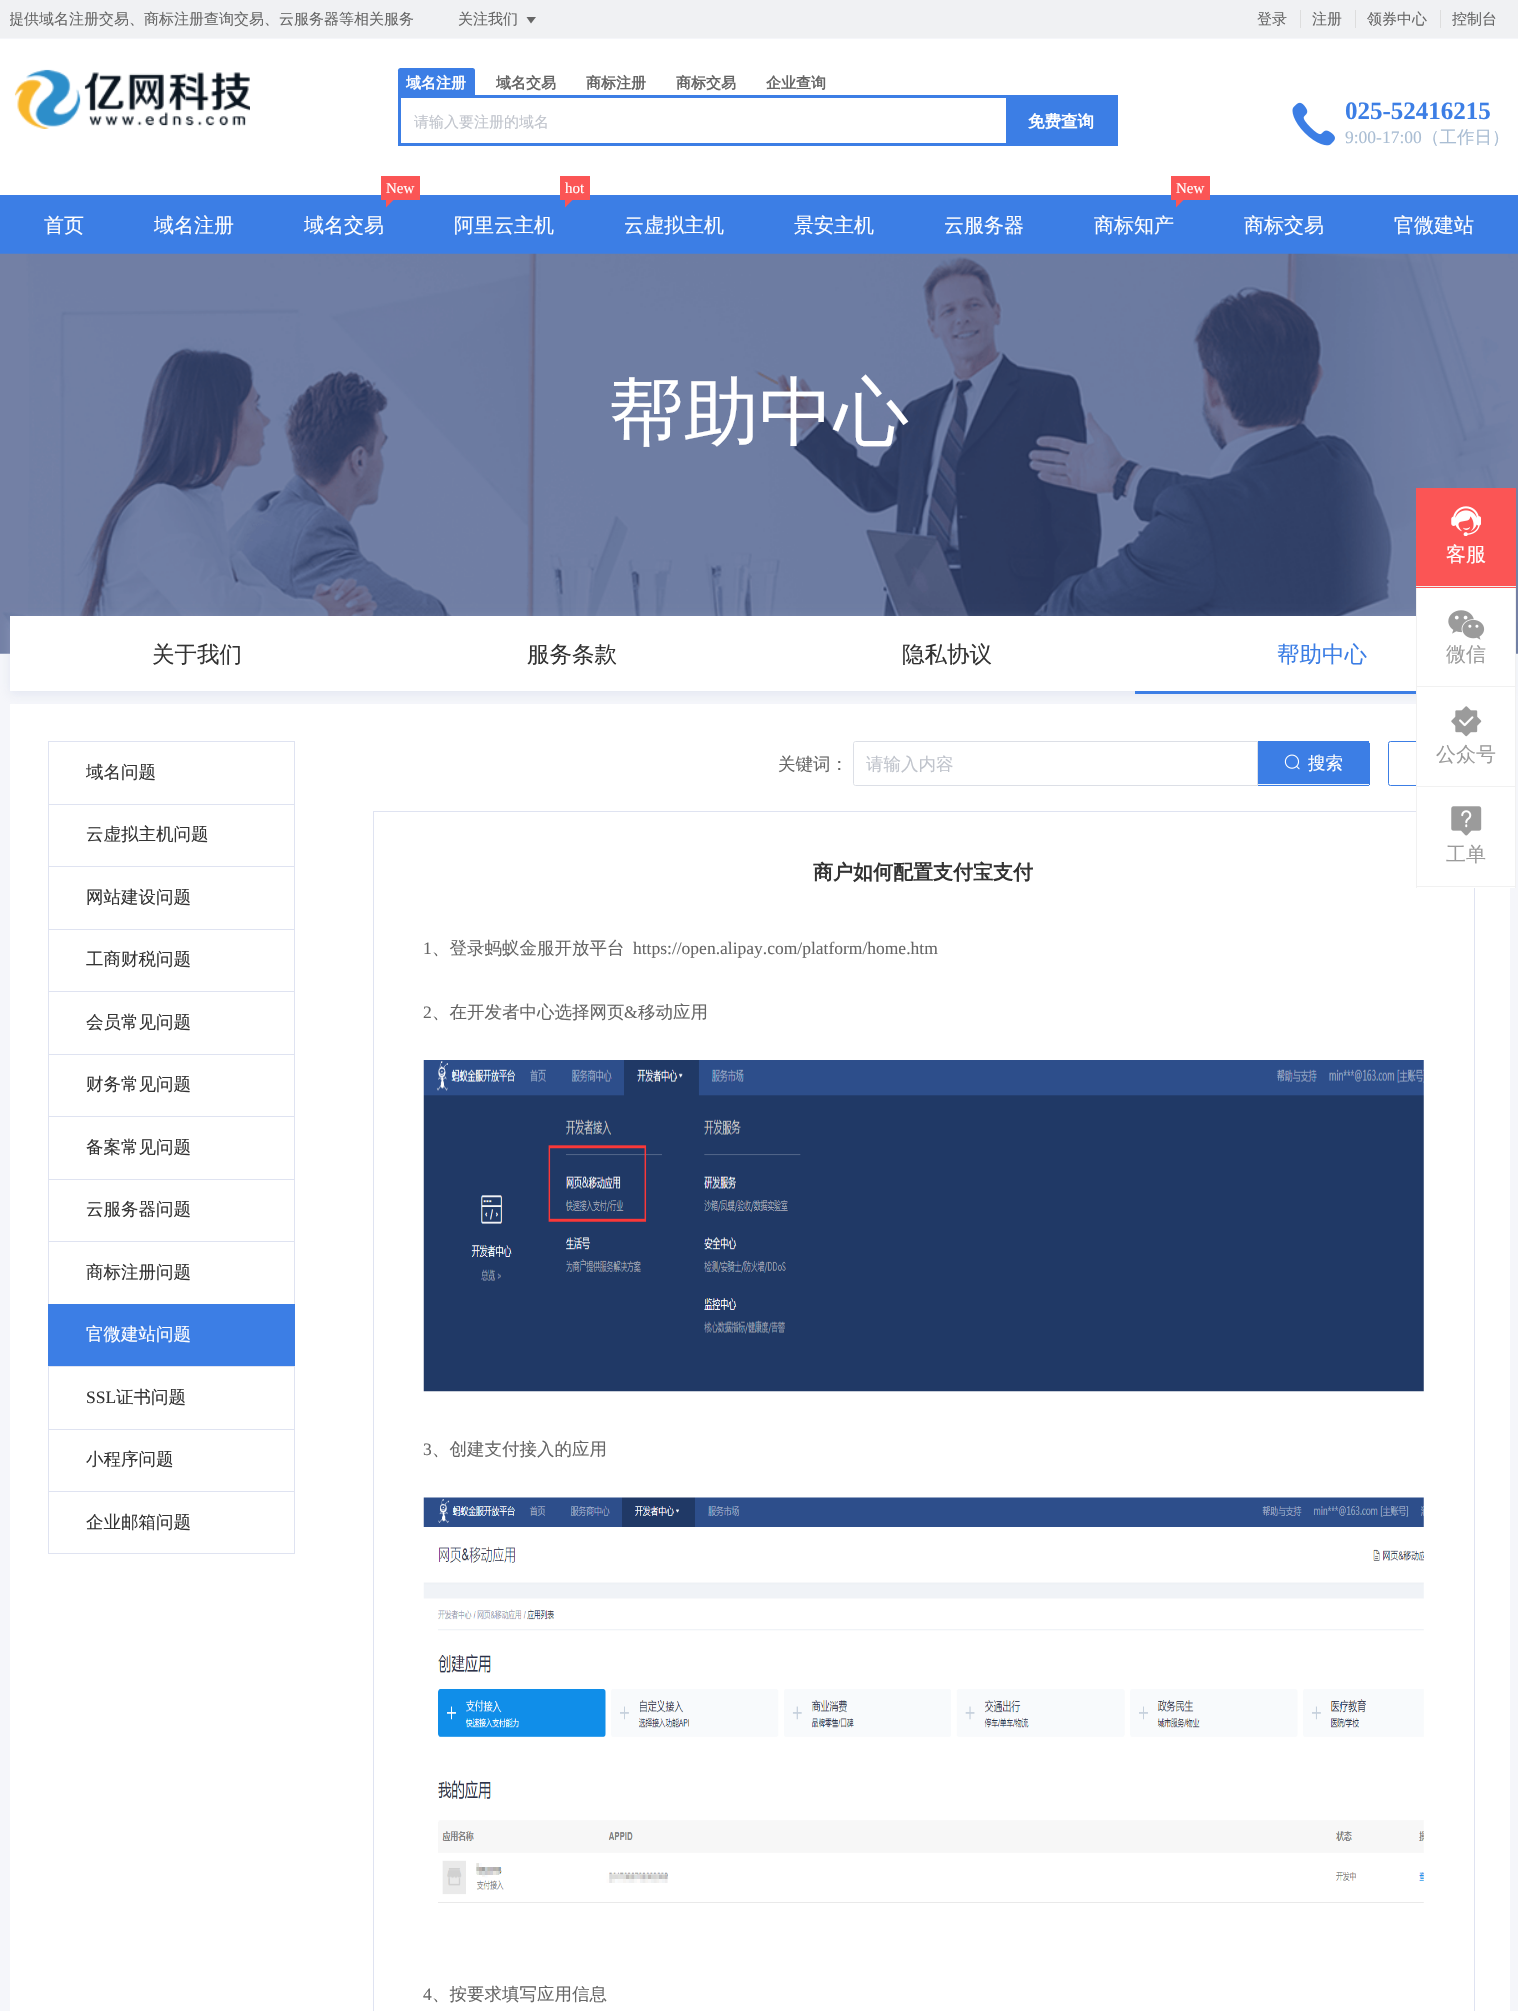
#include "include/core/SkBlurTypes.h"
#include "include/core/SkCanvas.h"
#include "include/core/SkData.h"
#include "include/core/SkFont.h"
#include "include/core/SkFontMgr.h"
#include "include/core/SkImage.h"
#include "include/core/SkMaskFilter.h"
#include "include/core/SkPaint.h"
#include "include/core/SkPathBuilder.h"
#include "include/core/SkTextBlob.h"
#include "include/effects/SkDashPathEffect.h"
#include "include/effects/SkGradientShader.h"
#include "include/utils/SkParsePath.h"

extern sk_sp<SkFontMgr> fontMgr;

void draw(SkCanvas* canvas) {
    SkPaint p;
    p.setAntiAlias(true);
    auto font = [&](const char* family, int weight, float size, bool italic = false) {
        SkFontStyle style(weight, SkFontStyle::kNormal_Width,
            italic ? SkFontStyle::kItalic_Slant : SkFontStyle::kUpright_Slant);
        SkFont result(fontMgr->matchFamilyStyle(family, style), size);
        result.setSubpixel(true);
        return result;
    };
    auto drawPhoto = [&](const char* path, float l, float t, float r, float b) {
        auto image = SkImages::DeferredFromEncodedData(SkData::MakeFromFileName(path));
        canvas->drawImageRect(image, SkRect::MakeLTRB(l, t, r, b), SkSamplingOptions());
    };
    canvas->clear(0xFFF5F6FA);
    p.setColor(0xFFF0F1F3);
    canvas->drawRect(SkRect::MakeLTRB(0, 0, 1518, 38), p);
    canvas->save();
    canvas->clipRect(SkRect::MakeLTRB(10, 0, 415, 38));
    auto font1 = font("WenQuanYi Zen Hei", 500, 15);
    p.setColor(0xFF666666);
    canvas->drawString("提供域名注册交易、商标注册查询交易、云服务器等相关服务", 9, 24, font1, p);
    canvas->restore();
    canvas->drawString("关注我们", 458, 24, font1, p);
    canvas->drawPath(SkPathBuilder().moveTo(526.5f, 17).lineTo(536, 17).lineTo(531, 23.5f).close().detach(), p);
    canvas->drawString("登录", 1257, 24, font1, p);
    p.setColor(0xFFDDDDDD);
    canvas->drawRect(SkRect::MakeLTRB(1300, 10, 1301, 28), p);
    p.setColor(0xFF666666);
    canvas->drawString("注册", 1312, 24, font1, p);
    p.setColor(0xFFDDDDDD);
    canvas->drawRect(SkRect::MakeLTRB(1355, 10, 1356, 28), p);
    p.setColor(0xFF666666);
    canvas->drawString("领券中心", 1367, 24, font1, p);
    p.setColor(0xFFDDDDDD);
    canvas->drawRect(SkRect::MakeLTRB(1440, 10, 1441, 28), p);
    p.setColor(0xFF666666);
    canvas->drawString("控制台", 1452, 24, font1, p);
    p.setColor(0xFFFFFFFF);
    canvas->drawRect(SkRect::MakeLTRB(0, 39, 1518, 195), p);
    drawPhoto("media/1.png", 14, 69, 250, 129);
    p.setColor(0xFF3C7EE5);
    canvas->drawPath(SkPathBuilder().moveTo(400.5f, 68).lineTo(472.5f, 68).cubicTo(474, 68, 475, 69, 475, 70.5f).lineTo(475, 95).lineTo(398, 95).lineTo(398, 70.5f).cubicTo(398, 69, 399, 68, 400.5f, 68).close().detach(), p);
    auto font2 = font("WenQuanYi Zen Hei", 700, 15);
    p.setColor(0xFFFFFFFF);
    canvas->drawString("域名注册", 406, 88, font2, p);
    p.setColor(0xFF666666);
    {
        const struct { const char* s; float x, y; } items[] = {
            {"域名交易", 496, 88},
            {"商标注册", 586, 88},
            {"商标交易", 676, 88},
            {"企业查询", 766, 88},
        };
        for (auto [s, x, y] : items) {
            canvas->drawString(s, x, y, font2, p);
        }
    }
    {
        const struct { float l, t, r, b; SkColor color; } items[] = {
            {398, 95, 1118, 98, 0xFF3C7EE5},
            {398, 143, 1118, 146, 0xFF3C7EE5},
            {398, 95, 401, 145, 0xFF3C7EE5},
        };
        for (auto [l, t, r, b, color] : items) {
            p.setColor(color);
            canvas->drawRect(SkRect::MakeLTRB(l, t, r, b), p);
        }
    }
    p.setColor(0xFFC0C4CC);
    canvas->drawString("请输入要注册的域名", 414, 127, font1, p);
    p.setColor(0xFF3C7EE5);
    canvas->drawRect(SkRect::MakeLTRB(1006, 98, 1118, 143), p);
    auto font3 = font("WenQuanYi Zen Hei", 700, 16.5f);
    p.setColor(0xFFFFFFFF);
    canvas->drawString("免费查询", 1028, 127, font3, p);
    drawPhoto("media/2.png", 1292, 102, 1335, 146);
    auto font4 = font("Liberation Serif", 700, 25);
    p.setColor(0xFF3C7EE5);
    canvas->drawString("025-52416215", 1345, 119, font4, p);
    auto font5 = font("Liberation Serif", 400, 17.5f);
    p.setColor(0xFFA9BDD3);
    canvas->drawString("9:00-17:00", 1345, 143, font5, p);
    auto font6 = font("WenQuanYi Zen Hei", 500, 17.5f);
    canvas->drawString("（工作日）", 1422, 143, font6, p);
    p.setColor(0xFF3C7EE5);
    canvas->drawRect(SkRect::MakeLTRB(0, 195, 1518, 254), p);
    auto font7 = font("WenQuanYi Zen Hei", 500, 20);
    p.setColor(0xFFFFFFFF);
    canvas->drawString("首页", 44, 232, font7, p);
    canvas->drawString("域名注册", 154, 232, font7, p);
    p.setColor(0xFFFB5555);
    canvas->drawRect(SkRect::MakeLTRB(381, 176, 420, 200), p);
    auto font8 = font("Liberation Serif", 400, 15);
    p.setColor(0xFFFFFFFF);
    canvas->drawString("New", 386, 193, font8, p);
    p.setColor(0xFFFB5555);
    canvas->drawPath(SkPathBuilder().moveTo(386, 197.5f).lineTo(396, 197.5f).lineTo(386, 207.5f).close().detach(), p);
    p.setColor(0xFFFFFFFF);
    canvas->drawString("域名交易", 304, 232, font7, p);
    p.setColor(0xFFFB5555);
    canvas->drawRect(SkRect::MakeLTRB(560, 176, 590, 200), p);
    p.setColor(0xFFFFFFFF);
    canvas->drawString("hot", 565, 193, font8, p);
    p.setColor(0xFFFB5555);
    canvas->drawPath(SkPathBuilder().moveTo(565, 197.5f).lineTo(575, 197.5f).lineTo(565, 207.5f).close().detach(), p);
    p.setColor(0xFFFFFFFF);
    {
        const struct { const char* s; float x, y; } items[] = {
            {"阿里云主机", 454, 232},
            {"云虚拟主机", 624, 232},
            {"景安主机", 794, 232},
            {"云服务器", 944, 232},
        };
        for (auto [s, x, y] : items) {
            canvas->drawString(s, x, y, font7, p);
        }
    }
    p.setColor(0xFFFB5555);
    canvas->drawRect(SkRect::MakeLTRB(1171, 176, 1210, 200), p);
    p.setColor(0xFFFFFFFF);
    canvas->drawString("New", 1176, 193, font8, p);
    p.setColor(0xFFFB5555);
    canvas->drawPath(SkPathBuilder().moveTo(1176, 197.5f).lineTo(1186, 197.5f).lineTo(1176, 207.5f).close().detach(), p);
    p.setColor(0xFFFFFFFF);
    {
        const struct { const char* s; float x, y; } items[] = {
            {"商标知产", 1094, 232},
            {"商标交易", 1244, 232},
            {"官微建站", 1394, 232},
        };
        for (auto [s, x, y] : items) {
            canvas->drawString(s, x, y, font7, p);
        }
    }
    drawPhoto("media/3.png", 0, 253, 1518, 654);
    auto font9 = font("WenQuanYi Zen Hei", 500, 75);
    canvas->drawString("帮助中心", 609, 438, font9, p);
    p.setColor(0x4DB6C0DB);
    p.setMaskFilter(SkMaskFilter::MakeBlur(kNormal_SkBlurStyle, 5));
    canvas->drawRect(SkRect::MakeLTRB(10, 619, 1510, 694), p);
    p.setMaskFilter(nullptr);
    p.setColor(0xFFFFFFFF);
    canvas->drawRect(SkRect::MakeLTRB(10, 616, 1416, 691), p);
    auto font10 = font("WenQuanYi Zen Hei", 500, 22.5f);
    p.setColor(0xFF333333);
    {
        const struct { const char* s; float x, y; } items[] = {
            {"关于我们", 152, 662},
            {"服务条款", 527, 662},
            {"隐私协议", 902, 662},
        };
        for (auto [s, x, y] : items) {
            canvas->drawString(s, x, y, font10, p);
        }
    }
    p.setColor(0xFF3C7EE5);
    canvas->drawRect(SkRect::MakeLTRB(1135, 691, 1416, 694), p);
    canvas->drawString("帮助中心", 1277, 662, font10, p);
    {
        const struct { float l, t, r, b; SkColor color; } items[] = {
            {10, 704, 1510, 2011, 0xFFFFFFFF},
            {48, 741, 295, 742, 0xFFDFE3F1},
            {294, 741, 295, 804, 0xFFDFE3F1},
            {48, 741, 49, 804, 0xFFDFE3F1},
        };
        for (auto [l, t, r, b, color] : items) {
            p.setColor(color);
            canvas->drawRect(SkRect::MakeLTRB(l, t, r, b), p);
        }
    }
    p.setColor(0xFF333333);
    canvas->drawString("域名问题", 86, 778, font6, p);
    {
        const struct { float l, t, r, b; SkColor color; } items[] = {
            {48, 804, 295, 805, 0xFFDFE3F1},
            {294, 804, 295, 866, 0xFFDFE3F1},
            {48, 804, 49, 866, 0xFFDFE3F1},
        };
        for (auto [l, t, r, b, color] : items) {
            p.setColor(color);
            canvas->drawRect(SkRect::MakeLTRB(l, t, r, b), p);
        }
    }
    p.setColor(0xFF333333);
    canvas->drawString("云虚拟主机问题", 86, 840, font6, p);
    {
        const struct { float l, t, r, b; SkColor color; } items[] = {
            {48, 866, 295, 867, 0xFFDFE3F1},
            {294, 866, 295, 929, 0xFFDFE3F1},
            {48, 866, 49, 929, 0xFFDFE3F1},
        };
        for (auto [l, t, r, b, color] : items) {
            p.setColor(color);
            canvas->drawRect(SkRect::MakeLTRB(l, t, r, b), p);
        }
    }
    p.setColor(0xFF333333);
    canvas->drawString("网站建设问题", 86, 903, font6, p);
    {
        const struct { float l, t, r, b; SkColor color; } items[] = {
            {48, 929, 295, 930, 0xFFDFE3F1},
            {294, 929, 295, 991, 0xFFDFE3F1},
            {48, 929, 49, 991, 0xFFDFE3F1},
        };
        for (auto [l, t, r, b, color] : items) {
            p.setColor(color);
            canvas->drawRect(SkRect::MakeLTRB(l, t, r, b), p);
        }
    }
    p.setColor(0xFF333333);
    canvas->drawString("工商财税问题", 86, 965, font6, p);
    {
        const struct { float l, t, r, b; SkColor color; } items[] = {
            {48, 991, 295, 992, 0xFFDFE3F1},
            {294, 991, 295, 1054, 0xFFDFE3F1},
            {48, 991, 49, 1054, 0xFFDFE3F1},
        };
        for (auto [l, t, r, b, color] : items) {
            p.setColor(color);
            canvas->drawRect(SkRect::MakeLTRB(l, t, r, b), p);
        }
    }
    p.setColor(0xFF333333);
    canvas->drawString("会员常见问题", 86, 1028, font6, p);
    {
        const struct { float l, t, r, b; SkColor color; } items[] = {
            {48, 1054, 295, 1055, 0xFFDFE3F1},
            {294, 1054, 295, 1116, 0xFFDFE3F1},
            {48, 1054, 49, 1116, 0xFFDFE3F1},
        };
        for (auto [l, t, r, b, color] : items) {
            p.setColor(color);
            canvas->drawRect(SkRect::MakeLTRB(l, t, r, b), p);
        }
    }
    p.setColor(0xFF333333);
    canvas->drawString("财务常见问题", 86, 1090, font6, p);
    {
        const struct { float l, t, r, b; SkColor color; } items[] = {
            {48, 1116, 295, 1117, 0xFFDFE3F1},
            {294, 1116, 295, 1179, 0xFFDFE3F1},
            {48, 1116, 49, 1179, 0xFFDFE3F1},
        };
        for (auto [l, t, r, b, color] : items) {
            p.setColor(color);
            canvas->drawRect(SkRect::MakeLTRB(l, t, r, b), p);
        }
    }
    p.setColor(0xFF333333);
    canvas->drawString("备案常见问题", 86, 1153, font6, p);
    {
        const struct { float l, t, r, b; SkColor color; } items[] = {
            {48, 1179, 295, 1180, 0xFFDFE3F1},
            {294, 1179, 295, 1241, 0xFFDFE3F1},
            {48, 1179, 49, 1241, 0xFFDFE3F1},
        };
        for (auto [l, t, r, b, color] : items) {
            p.setColor(color);
            canvas->drawRect(SkRect::MakeLTRB(l, t, r, b), p);
        }
    }
    p.setColor(0xFF333333);
    canvas->drawString("云服务器问题", 86, 1215, font6, p);
    {
        const struct { float l, t, r, b; SkColor color; } items[] = {
            {48, 1241, 295, 1242, 0xFFDFE3F1},
            {294, 1241, 295, 1304, 0xFFDFE3F1},
            {48, 1241, 49, 1304, 0xFFDFE3F1},
        };
        for (auto [l, t, r, b, color] : items) {
            p.setColor(color);
            canvas->drawRect(SkRect::MakeLTRB(l, t, r, b), p);
        }
    }
    p.setColor(0xFF333333);
    canvas->drawString("商标注册问题", 86, 1278, font6, p);
    p.setColor(0xFF3C7EE5);
    canvas->drawRect(SkRect::MakeLTRB(48, 1304, 295, 1366), p);
    p.setColor(0xFFFFFFFF);
    canvas->drawString("官微建站问题", 86, 1340, font6, p);
    {
        const struct { float l, t, r, b; SkColor color; } items[] = {
            {48, 1366, 295, 1367, 0xFFDFE3F1},
            {294, 1366, 295, 1429, 0xFFDFE3F1},
            {48, 1366, 49, 1429, 0xFFDFE3F1},
        };
        for (auto [l, t, r, b, color] : items) {
            p.setColor(color);
            canvas->drawRect(SkRect::MakeLTRB(l, t, r, b), p);
        }
    }
    p.setColor(0xFF333333);
    canvas->drawString("SSL", 86, 1403, font5, p);
    canvas->drawString("证书问题", 116, 1403, font6, p);
    {
        const struct { float l, t, r, b; SkColor color; } items[] = {
            {48, 1429, 295, 1430, 0xFFDFE3F1},
            {294, 1429, 295, 1491, 0xFFDFE3F1},
            {48, 1429, 49, 1491, 0xFFDFE3F1},
        };
        for (auto [l, t, r, b, color] : items) {
            p.setColor(color);
            canvas->drawRect(SkRect::MakeLTRB(l, t, r, b), p);
        }
    }
    p.setColor(0xFF333333);
    canvas->drawString("小程序问题", 86, 1465, font6, p);
    p.setStyle(SkPaint::kStroke_Style);
    p.setStrokeWidth(1);
    p.setColor(0xFFDFE3F1);
    canvas->drawRect(SkRect::MakeLTRB(48.5f, 1491.5f, 294.5f, 1553.5f), p);
    p.setStyle(SkPaint::kFill_Style);
    p.setColor(0xFF333333);
    canvas->drawString("企业邮箱问题", 86, 1528, font6, p);
    p.setColor(0xFF666666);
    canvas->drawString("关键词：", 778, 770, font6, p);
    p.setStyle(SkPaint::kStroke_Style);
    p.setColor(0xFFDCDFE6);
    canvas->drawPath(SkPathBuilder().moveTo(855.5f, 741.5f).lineTo(1257.5f, 741.5f).lineTo(1257.5f, 785.5f).lineTo(855.5f, 785.5f).cubicTo(854.5f, 785.5f, 853.5f, 784.5f, 853.5f, 783.5f).lineTo(853.5f, 743.5f).cubicTo(853.5f, 742.5f, 854.5f, 741.5f, 855.5f, 741.5f).close().detach(), p);
    p.setStyle(SkPaint::kFill_Style);
    p.setColor(0xFFC0C4CC);
    canvas->drawString("请输入内容", 866, 770, font6, p);
    p.setColor(0xFFF4F8FB);
    canvas->drawPath(SkPathBuilder().moveTo(1258, 741).lineTo(1367.5f, 741).cubicTo(1369, 741, 1370, 742, 1370, 743.5f).lineTo(1370, 783.5f).cubicTo(1370, 785, 1369, 786, 1367.5f, 786).lineTo(1258, 786).close().detach(), p);
    {
        const struct { float l, t, r, b; SkColor color; } items[] = {
            {1369, 743, 1370, 785, 0xFF3C7EE5},
            {1258, 785, 1369, 786, 0xFF3C7EE5},
            {1258, 741, 1369, 784, 0xFF3C7EE5},
        };
        for (auto [l, t, r, b, color] : items) {
            p.setColor(color);
            canvas->drawRect(SkRect::MakeLTRB(l, t, r, b), p);
        }
    }
    drawPhoto("media/4.png", 1284, 754, 1300, 770);
    p.setColor(0xFFFFFFFF);
    canvas->drawString("搜索", 1308, 769, font6, p);
    p.setStyle(SkPaint::kStroke_Style);
    p.setColor(0xFF3C7EE5);
    canvas->drawRoundRect(SkRect::MakeLTRB(1388.5f, 741.5f, 1474.5f, 785.5f), 2, 2, p);
    p.setColor(0xFFDFE3F1);
    canvas->drawRect(SkRect::MakeLTRB(373.5f, 811.5f, 1474.5f, 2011.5f), p);
    auto font11 = font("WenQuanYi Zen Hei", 700, 20);
    p.setStyle(SkPaint::kFill_Style);
    p.setColor(0xFF333333);
    canvas->drawString("商户如何配置支付宝支付", 813, 879, font11, p);
    p.setColor(0xFF666666);
    canvas->drawString("1", 423, 954, font5, p);
    canvas->drawString("、登录蚂蚁金服开放平台", 432, 954, font6, p);
    canvas->drawString("https://open.alipay.com/platform/home.htm", 633, 954, font5, p);
    canvas->drawString("2", 423, 1018, font5, p);
    canvas->drawString("、在开发者中心选择网页", 432, 1018, font6, p);
    canvas->drawString("&", 624, 1018, font5, p);
    canvas->drawString("移动应用", 638, 1018, font6, p);
    drawPhoto("media/5.png", 423, 1060, 1424, 1392);
    canvas->drawString("3", 423, 1455, font5, p);
    canvas->drawString("、创建支付接入的应用", 432, 1455, font6, p);
    drawPhoto("media/6.png", 423, 1497, 1424, 1903);
    canvas->drawString("4", 423, 2000, font5, p);
    canvas->drawString("、按要求填写应用信息", 432, 2000, font6, p);
    p.setColor(0xFFFB5555);
    canvas->drawRect(SkRect::MakeLTRB(1416, 488, 1516, 588), p);
    p.setColor(0xFFF1F1F1);
    canvas->drawRect(SkRect::MakeLTRB(1416, 586, 1516, 587), p);
    drawPhoto("media/7.png", 1451, 506, 1481, 536);
    p.setColor(0xFFFFFFFF);
    canvas->drawString("客服", 1446, 561, font7, p);
    {
        const struct { float l, t, r, b; SkColor color; } items[] = {
            {1417, 588, 1515, 888, 0xFFFFFFFF},
            {1515, 588, 1516, 888, 0xFFF1F1F1},
            {1416, 686, 1516, 687, 0xFFF1F1F1},
            {1416, 588, 1417, 688, 0xFFF1F1F1},
        };
        for (auto [l, t, r, b, color] : items) {
            p.setColor(color);
            canvas->drawRect(SkRect::MakeLTRB(l, t, r, b), p);
        }
    }
    drawPhoto("media/8.png", 1448, 610, 1485, 640);
    p.setColor(0xFF9B9B9B);
    canvas->drawString("微信", 1446, 661, font7, p);
    p.setColor(0xFFF1F1F1);
    canvas->drawRect(SkRect::MakeLTRB(1416, 786, 1516, 787), p);
    canvas->drawRect(SkRect::MakeLTRB(1416, 688, 1417, 788), p);
    drawPhoto("media/9.png", 1451, 706, 1482, 737);
    p.setColor(0xFF9B9B9B);
    canvas->drawString("公众号", 1436, 761, font7, p);
    p.setColor(0xFFF1F1F1);
    canvas->drawRect(SkRect::MakeLTRB(1416, 886, 1516, 887), p);
    canvas->drawRect(SkRect::MakeLTRB(1416, 788, 1417, 888), p);
    drawPhoto("media/10.png", 1451, 806, 1482, 836);
    p.setColor(0xFF9B9B9B);
    canvas->drawString("工单", 1446, 861, font7, p);
}
